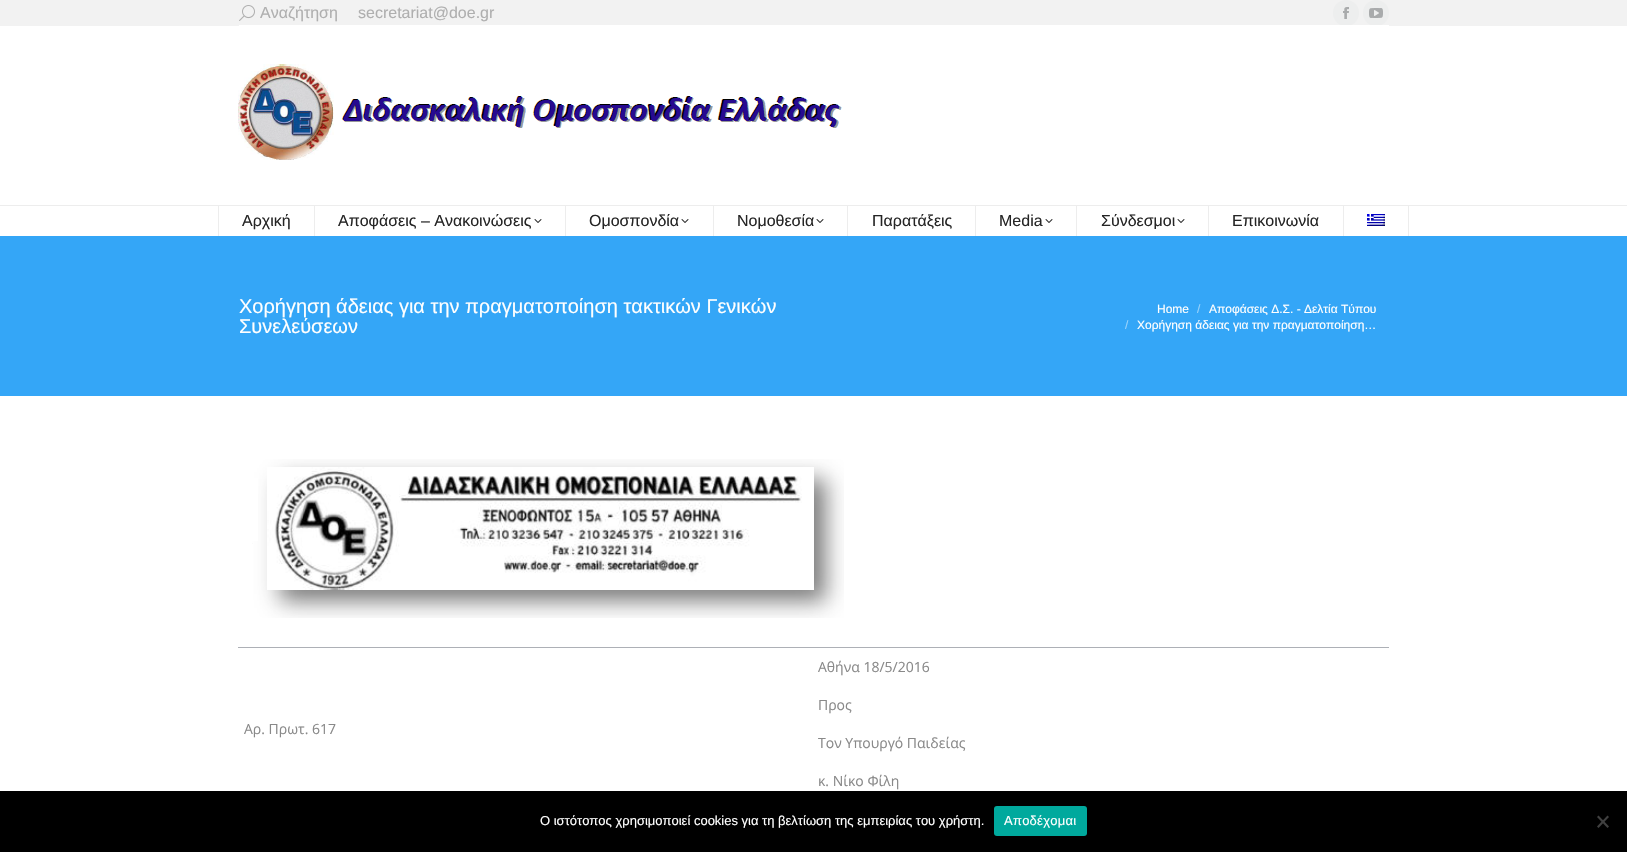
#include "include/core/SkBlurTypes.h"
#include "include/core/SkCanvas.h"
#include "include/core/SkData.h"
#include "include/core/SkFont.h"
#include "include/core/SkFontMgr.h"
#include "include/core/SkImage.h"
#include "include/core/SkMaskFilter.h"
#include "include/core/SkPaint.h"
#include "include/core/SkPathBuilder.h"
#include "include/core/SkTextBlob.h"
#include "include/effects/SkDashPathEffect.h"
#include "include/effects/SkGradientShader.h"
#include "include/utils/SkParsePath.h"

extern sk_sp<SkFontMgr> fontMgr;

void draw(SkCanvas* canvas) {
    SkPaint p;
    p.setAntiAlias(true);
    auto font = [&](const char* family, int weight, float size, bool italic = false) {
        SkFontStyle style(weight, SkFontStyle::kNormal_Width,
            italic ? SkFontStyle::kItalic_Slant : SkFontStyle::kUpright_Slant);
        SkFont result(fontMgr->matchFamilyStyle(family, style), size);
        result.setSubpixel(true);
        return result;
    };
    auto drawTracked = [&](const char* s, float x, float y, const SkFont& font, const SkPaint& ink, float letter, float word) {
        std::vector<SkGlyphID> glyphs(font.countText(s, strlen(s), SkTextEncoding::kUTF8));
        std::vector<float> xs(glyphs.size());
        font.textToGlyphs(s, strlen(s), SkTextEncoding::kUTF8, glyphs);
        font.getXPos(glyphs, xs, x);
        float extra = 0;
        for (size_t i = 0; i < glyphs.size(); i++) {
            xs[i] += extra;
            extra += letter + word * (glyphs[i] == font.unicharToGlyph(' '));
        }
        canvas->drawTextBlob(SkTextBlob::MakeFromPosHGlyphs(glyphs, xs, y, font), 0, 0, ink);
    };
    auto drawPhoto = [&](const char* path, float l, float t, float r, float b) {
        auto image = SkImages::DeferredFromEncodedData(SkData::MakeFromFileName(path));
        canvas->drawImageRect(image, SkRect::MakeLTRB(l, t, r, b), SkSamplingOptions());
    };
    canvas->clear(0xFFFFFFFF);
    p.setColor(0xFFF2F2F2);
    canvas->drawRect(SkRect::MakeLTRB(0, 0, 1627, 26), p);
    drawPhoto("media/1.png", 239, 5, 255, 21);
    auto font1 = font("Liberation Sans", 400, 16);
    p.setColor(0xFFAFAFAF);
    canvas->drawString("Αναζήτηση", 260, 18, font1, p);
    canvas->drawString("secretariat@doe.gr", 358, 18, font1, p);
    p.setColor(0xFFEDEEEE);
    canvas->drawCircle(1346, 13, 13, p);
    drawPhoto("media/2.png", 1343, 7, 1349, 19);
    canvas->drawCircle(1376, 13, 13, p);
    drawPhoto("media/3.png", 1369, 8, 1383, 18);
    p.setColor(0xFFFFFFFF);
    canvas->drawRect(SkRect::MakeLTRB(239, 25, 1389, 26), p);
    drawPhoto("media/4.png", 238, 64, 842, 160);
    p.setColor(0xFFEDEDED);
    canvas->drawRect(SkRect::MakeLTRB(0, 205, 1627, 206), p);
    canvas->drawRect(SkRect::MakeLTRB(218, 206, 219, 236), p);
    p.setColor(0xFF252525);
    canvas->drawString("Αρχική", 242, 226, font1, p);
    p.setColor(0xFFEDEDED);
    canvas->drawRect(SkRect::MakeLTRB(314, 206, 315, 236), p);
    p.setColor(0xFF252525);
    canvas->drawString("Αποφάσεις – Ανακοινώσεις", 338, 226, font1, p);
    drawPhoto("media/5.png", 534, 219, 542, 223);
    p.setColor(0xFFEDEDED);
    canvas->drawRect(SkRect::MakeLTRB(565, 206, 566, 236), p);
    p.setColor(0xFF252525);
    canvas->drawString("Ομοσπονδία", 589, 226, font1, p);
    drawPhoto("media/5.png", 681, 219, 689, 223);
    p.setColor(0xFFEDEDED);
    canvas->drawRect(SkRect::MakeLTRB(713, 206, 714, 236), p);
    p.setColor(0xFF252525);
    canvas->drawString("Νομοθεσία", 737, 226, font1, p);
    drawPhoto("media/5.png", 816, 219, 824, 223);
    p.setColor(0xFFEDEDED);
    canvas->drawRect(SkRect::MakeLTRB(847, 206, 848, 236), p);
    p.setColor(0xFF252525);
    canvas->drawString("Παρατάξεις", 872, 226, font1, p);
    p.setColor(0xFFEDEDED);
    canvas->drawRect(SkRect::MakeLTRB(975, 206, 976, 236), p);
    p.setColor(0xFF252525);
    canvas->drawString("Media", 999, 226, font1, p);
    drawPhoto("media/5.png", 1045, 219, 1053, 223);
    p.setColor(0xFFEDEDED);
    canvas->drawRect(SkRect::MakeLTRB(1076, 206, 1077, 236), p);
    p.setColor(0xFF252525);
    canvas->drawString("Σύνδεσμοι", 1101, 226, font1, p);
    drawPhoto("media/5.png", 1177, 219, 1185, 223);
    p.setColor(0xFFEDEDED);
    canvas->drawRect(SkRect::MakeLTRB(1208, 206, 1209, 236), p);
    p.setColor(0xFF252525);
    canvas->drawString("Επικοινωνία", 1232, 226, font1, p);
    p.setColor(0xFFEDEDED);
    canvas->drawRect(SkRect::MakeLTRB(1343, 206, 1344, 236), p);
    drawPhoto("media/6.png", 1367, 214, 1385, 226);
    canvas->drawRect(SkRect::MakeLTRB(1408, 206, 1409, 236), p);
    p.setColor(0xFF34A6F7);
    canvas->drawRect(SkRect::MakeLTRB(0, 236, 1627, 396), p);
    auto font2 = font("Liberation Sans", 400, 20);
    p.setColor(0xFFFFFFFF);
    canvas->drawString("Χορήγηση άδειας για την πραγματοποίηση τακτικών Γενικών", 239, 313, font2, p);
    canvas->drawString("Συνελεύσεων", 239, 333, font2, p);
    auto font3 = font("Liberation Sans", 400, 12);
    canvas->drawString("Home", 1157, 313, font3, p);
    p.setColor(0xFF9AD3FB);
    canvas->drawString("/", 1197, 313, font3, p);
    p.setColor(0xFFFFFFFF);
    canvas->drawString("Αποφάσεις Δ.Σ. - Δελτία Τύπου", 1209, 313, font3, p);
    p.setColor(0xFF9AD3FB);
    canvas->drawString("/", 1125, 329, font3, p);
    p.setColor(0xFFFFFFFF);
    canvas->drawString("Χορήγηση άδειας για την πραγματοποίηση…", 1137, 329, font3, p);
    drawPhoto("media/7.png", 252, 459, 844, 618);
    auto font4 = font("Open Sans", 400, 14);
    p.setColor(0xFF898989);
    canvas->drawString("Αρ. Πρωτ. 617", 244, 734, font4, p);
    p.setColor(0xFFADB0B6);
    canvas->drawRect(SkRect::MakeLTRB(238, 647, 1389, 648), p);
    p.setColor(0xFF898989);
    {
        const struct { const char* s; float x, y; } items[] = {
            {"Αθήνα 18/5/2016", 818, 672},
            {"Προς", 818, 710},
            {"Τον Υπουργό Παιδείας", 818, 748},
            {"κ. Νίκο Φίλη", 818, 786},
        };
        for (auto [s, x, y] : items) {
            canvas->drawString(s, x, y, font4, p);
        }
    }
    p.setColor(0xFF000000);
    canvas->drawRect(SkRect::MakeLTRB(0, 791, 1627, 852), p);
    auto font5 = font("Liberation Sans", 400, 13);
    p.setColor(0xFFFFFFFF);
    canvas->drawString("Ο ιστότοπος χρησιμοποιεί cookies για τη βελτίωση της εμπειρίας του χρήστη.", 540, 825, font5, p);
    p.setColor(0xFF00A99D);
    canvas->drawRoundRect(SkRect::MakeLTRB(994, 806, 1087, 836), 3, 3, p);
    p.setColor(0xFFFFFFFF);
    drawTracked("Αποδέχομαι", 1004, 825, font5, p, 0.25f, 0);
    p.setColor(0xFF404040);
    canvas->drawPath(SkPathBuilder().moveTo(1607.5f, 815.5f).lineTo(1609, 817).lineTo(1598.5f, 828).lineTo(1597, 826.5f).close().detach(), p);
    canvas->drawPath(SkPathBuilder().moveTo(1597, 817).lineTo(1598.5f, 815.5f).lineTo(1609, 826.5f).lineTo(1607.5f, 828).close().detach(), p);
}
